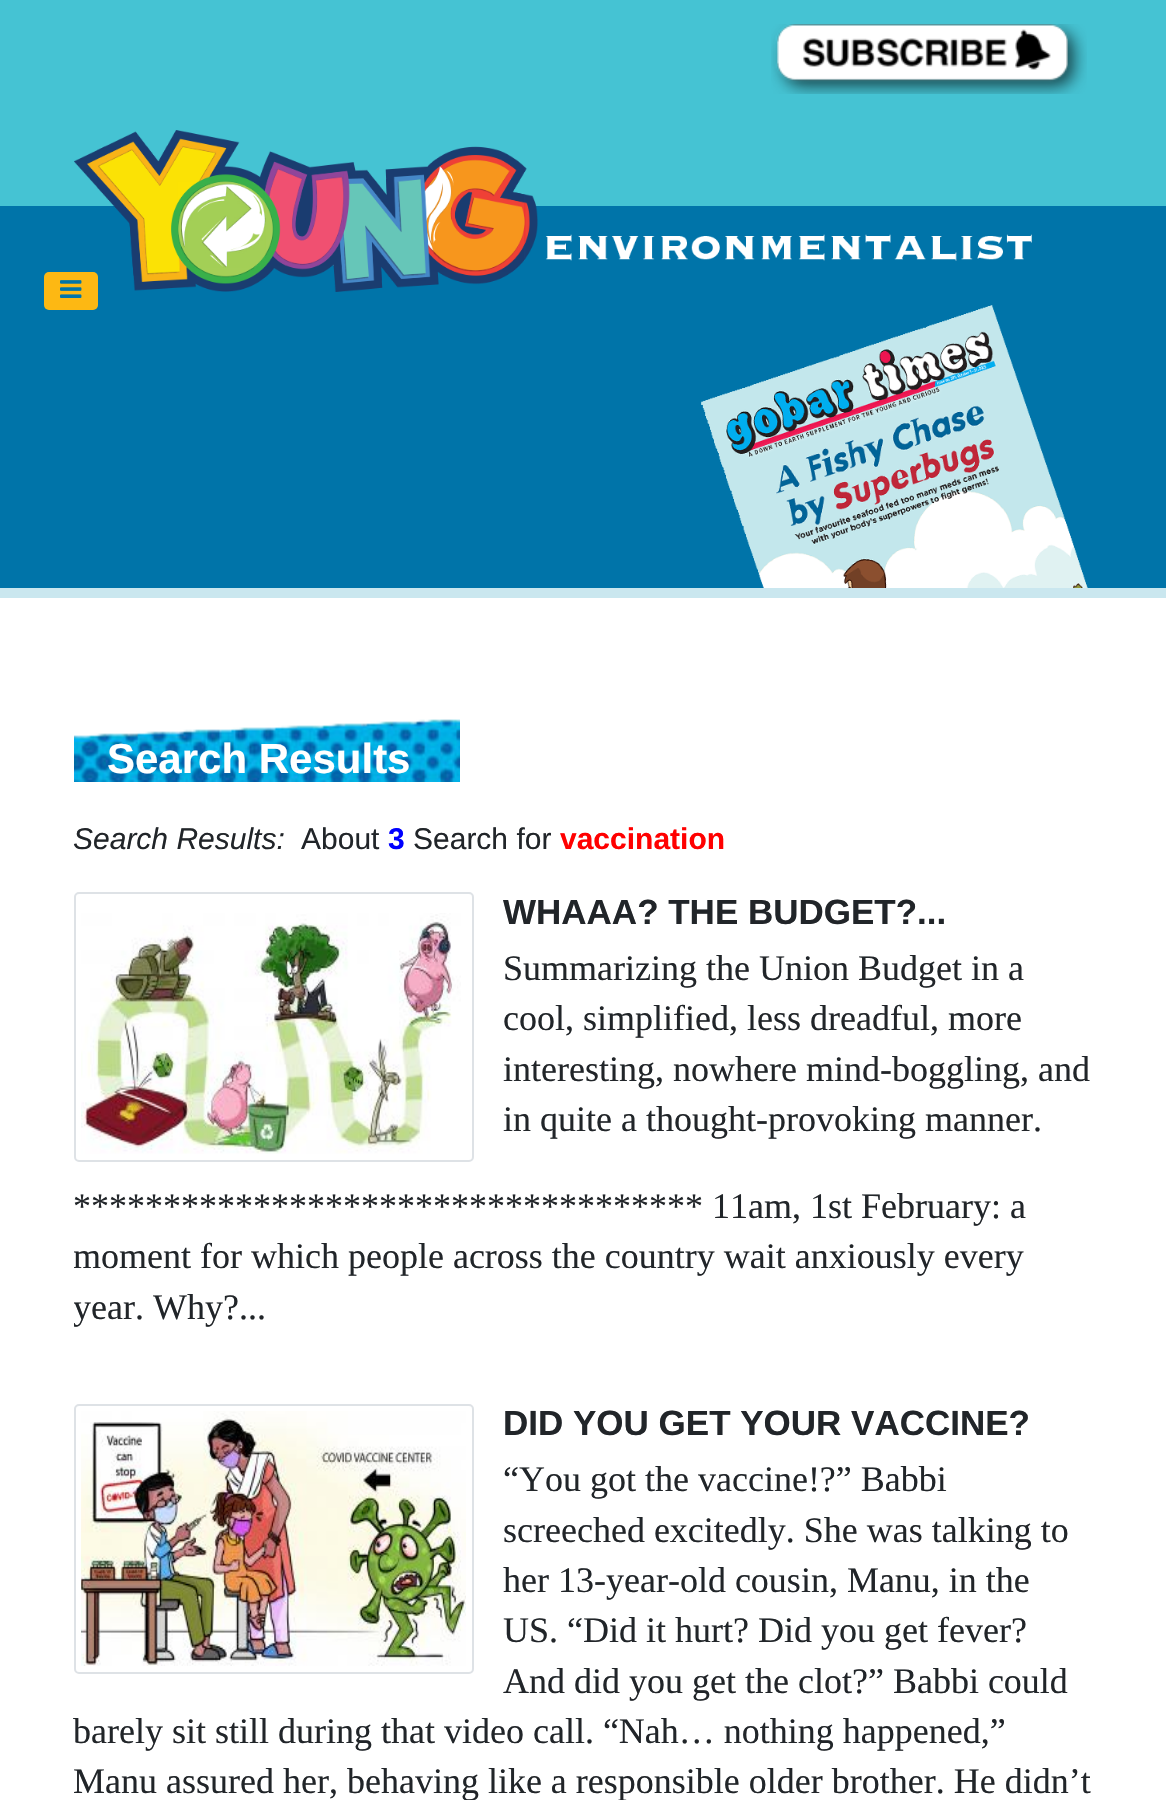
#include "include/core/SkBlurTypes.h"
#include "include/core/SkCanvas.h"
#include "include/core/SkData.h"
#include "include/core/SkFont.h"
#include "include/core/SkFontMgr.h"
#include "include/core/SkImage.h"
#include "include/core/SkMaskFilter.h"
#include "include/core/SkPaint.h"
#include "include/core/SkPathBuilder.h"
#include "include/core/SkTextBlob.h"
#include "include/effects/SkDashPathEffect.h"
#include "include/effects/SkGradientShader.h"
#include "include/utils/SkParsePath.h"

extern sk_sp<SkFontMgr> fontMgr;

void draw(SkCanvas* canvas) {
    SkPaint p;
    p.setAntiAlias(true);
    auto font = [&](const char* family, int weight, float size, bool italic = false) {
        SkFontStyle style(weight, SkFontStyle::kNormal_Width,
            italic ? SkFontStyle::kItalic_Slant : SkFontStyle::kUpright_Slant);
        SkFont result(fontMgr->matchFamilyStyle(family, style), size);
        result.setSubpixel(true);
        return result;
    };
    auto drawPhoto = [&](const char* path, float l, float t, float r, float b) {
        auto image = SkImages::DeferredFromEncodedData(SkData::MakeFromFileName(path));
        canvas->drawImageRect(image, SkRect::MakeLTRB(l, t, r, b), SkSamplingOptions());
    };
    canvas->clear(0xFFFFFFFF);
    p.setColor(0xFF45C3D3);
    canvas->drawRect(SkRect::MakeLTRB(0, 0, 1166, 206), p);
    drawPhoto("media/1.png", 771, 24, 1087, 94);
    p.setColor(0xFF0074A9);
    canvas->drawRect(SkRect::MakeLTRB(0, 206, 1166, 588), p);
    drawPhoto("media/3.png", 74, 130, 1032, 292);
    p.setColor(0xFFFDB813);
    canvas->drawRoundRect(SkRect::MakeLTRB(44, 272, 98, 310), 5, 5, p);
    drawPhoto("media/2.png", 60, 280, 82, 298);
    drawPhoto("media/4.png", 701, 305, 1088, 588);
    p.setColor(0xFFCAE7EF);
    canvas->drawRect(SkRect::MakeLTRB(0, 588, 1166, 598), p);
    drawPhoto("media/5.png", 74, 719, 460, 782);
    auto font1 = font("Liberation Sans", 700, 42);
    p.setColor(0xFFFFFFFF);
    canvas->drawString("Search Results", 107, 773, font1, p);
    auto font2 = font("Liberation Sans", 400, 30, true);
    p.setColor(0xFF212529);
    canvas->drawString("Search Results:", 73, 849, font2, p);
    auto font3 = font("Liberation Sans", 400, 30);
    canvas->drawString("About", 301, 849, font3, p);
    auto font4 = font("Liberation Sans", 700, 30);
    p.setColor(0xFF0000FF);
    canvas->drawString("3", 388, 849, font4, p);
    p.setColor(0xFF212529);
    canvas->drawString("Search for", 413, 849, font3, p);
    p.setColor(0xFFFF0000);
    canvas->drawString("vaccination", 560, 849, font4, p);
    p.setStyle(SkPaint::kStroke_Style);
    p.setStrokeWidth(2);
    p.setColor(0xFFDEE2E6);
    canvas->drawRoundRect(SkRect::MakeLTRB(75, 893, 473, 1161), 4, 4, p);
    drawPhoto("media/6.png", 81, 913, 461, 1154);
    auto font5 = font("Liberation Sans", 700, 35);
    p.setStyle(SkPaint::kFill_Style);
    p.setColor(0xFF212529);
    canvas->drawString("WHAAA? THE BUDGET?...", 503, 924, font5, p);
    auto font6 = font("Liberation Serif", 400, 36);
    {
        const struct { const char* s; float x, y; } items[] = {
            {"Summarizing the Union Budget in a", 503, 980},
            {"cool, simplified, less dreadful, more", 503, 1030},
            {"interesting, nowhere mind-boggling, and", 503, 1081},
            {"in quite a thought-provoking manner.", 503, 1131},
            {"*********************************** 11am, 1st February: a", 73, 1218},
        };
        for (auto [s, x, y] : items) {
            canvas->drawString(s, x, y, font6, p);
        }
    }
    canvas->save();
    canvas->clipRect(SkRect::MakeLTRB(74, 892, 1094, 1354));
    canvas->drawString("moment for which people across the country wait anxiously every", 73, 1268, font6, p);
    canvas->drawString("year. Why?...", 73, 1319, font6, p);
    canvas->restore();
    p.setStyle(SkPaint::kStroke_Style);
    p.setColor(0xFFDEE2E6);
    canvas->drawRoundRect(SkRect::MakeLTRB(75, 1405, 473, 1673), 4, 4, p);
    drawPhoto("media/7.png", 81, 1411, 466, 1666);
    p.setStyle(SkPaint::kFill_Style);
    p.setColor(0xFF212529);
    canvas->drawString("DID YOU GET YOUR VACCINE?", 503, 1435, font5, p);
    {
        const struct { const char* s; float x, y; } items[] = {
            {"“You got the vaccine!?” Babbi", 503, 1491},
            {"screeched excitedly. She was talking to", 503, 1542},
            {"her 13-year-old cousin, Manu, in the", 503, 1592},
            {"US. “Did it hurt? Did you get fever?", 503, 1642},
            {"And did you get the clot?” Babbi could", 503, 1693},
            {"barely sit still during that video call. “Nah… nothing happened,”", 73, 1743},
            {"Manu assured her, behaving like a responsible older brother. He didn’t", 73, 1793},
        };
        for (auto [s, x, y] : items) {
            canvas->drawString(s, x, y, font6, p);
        }
    }
}
